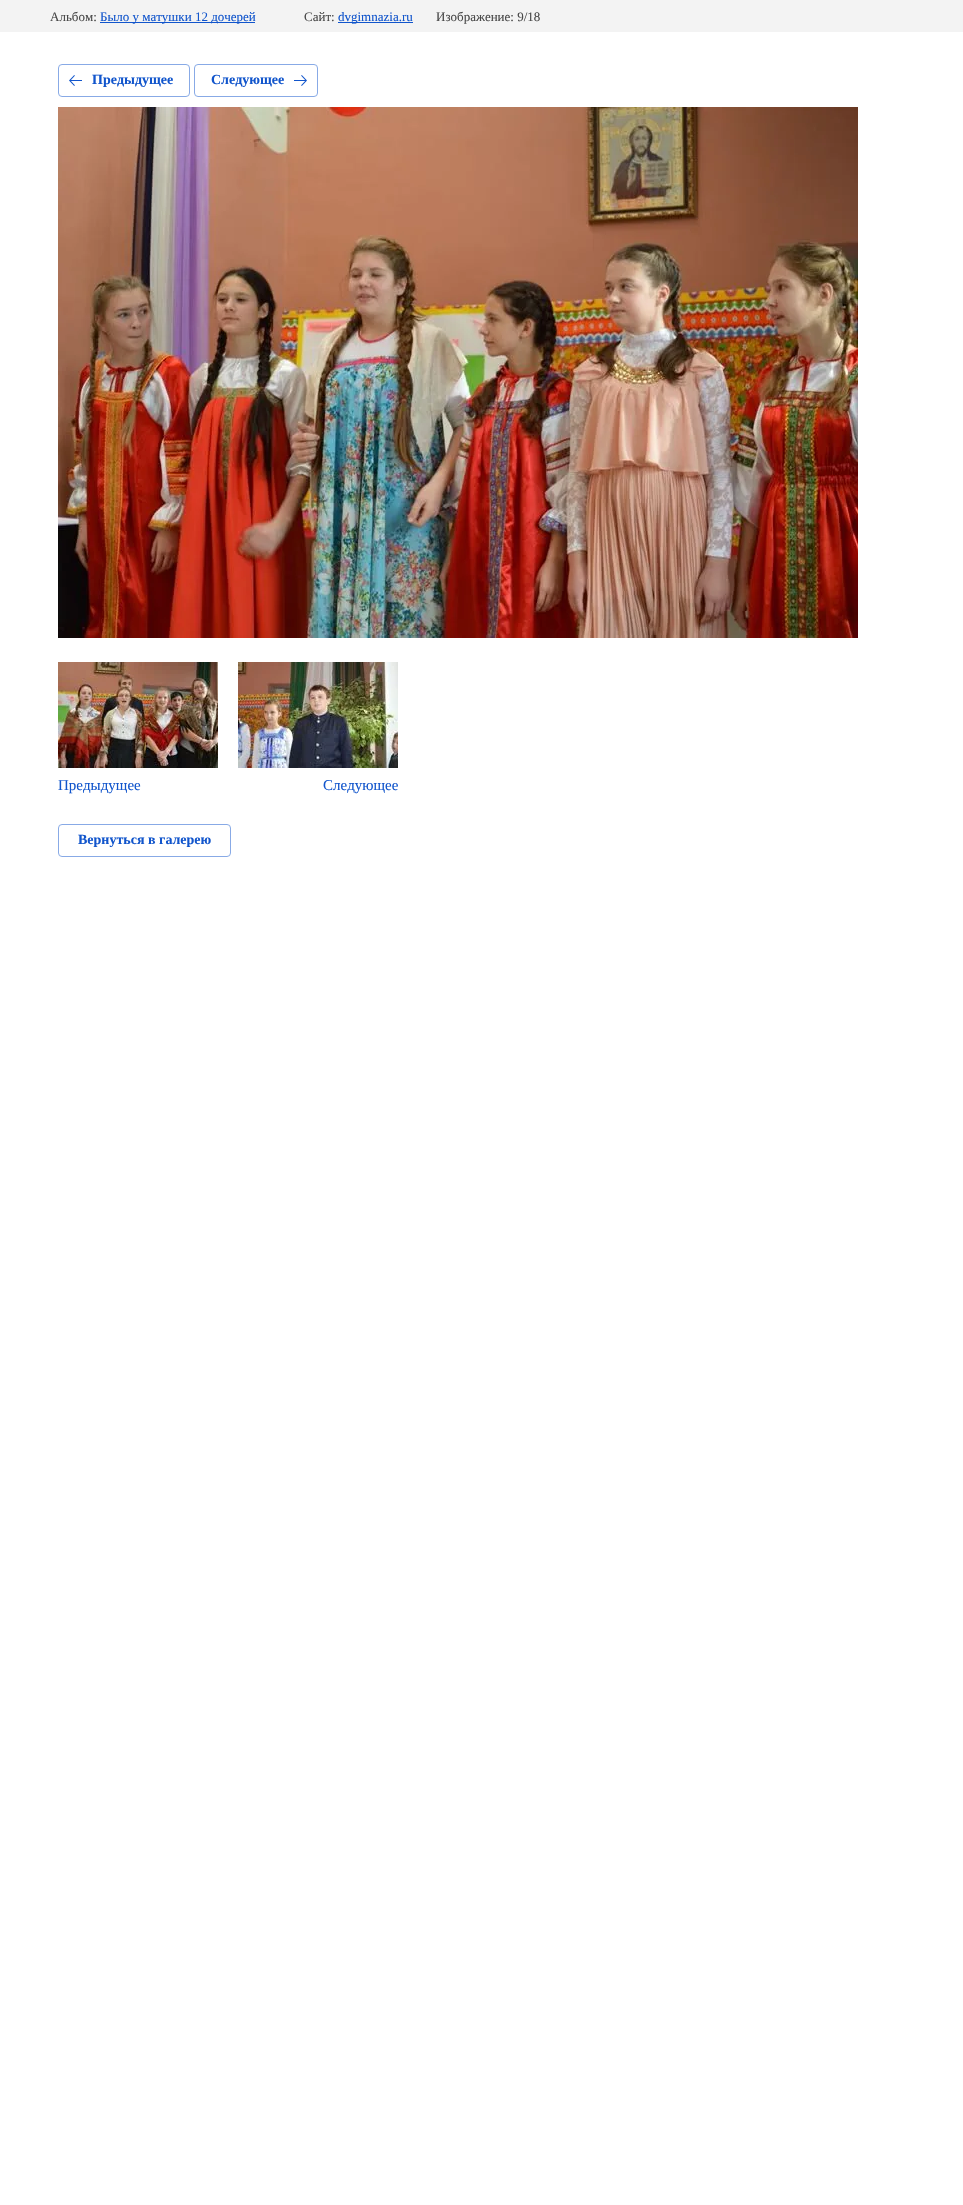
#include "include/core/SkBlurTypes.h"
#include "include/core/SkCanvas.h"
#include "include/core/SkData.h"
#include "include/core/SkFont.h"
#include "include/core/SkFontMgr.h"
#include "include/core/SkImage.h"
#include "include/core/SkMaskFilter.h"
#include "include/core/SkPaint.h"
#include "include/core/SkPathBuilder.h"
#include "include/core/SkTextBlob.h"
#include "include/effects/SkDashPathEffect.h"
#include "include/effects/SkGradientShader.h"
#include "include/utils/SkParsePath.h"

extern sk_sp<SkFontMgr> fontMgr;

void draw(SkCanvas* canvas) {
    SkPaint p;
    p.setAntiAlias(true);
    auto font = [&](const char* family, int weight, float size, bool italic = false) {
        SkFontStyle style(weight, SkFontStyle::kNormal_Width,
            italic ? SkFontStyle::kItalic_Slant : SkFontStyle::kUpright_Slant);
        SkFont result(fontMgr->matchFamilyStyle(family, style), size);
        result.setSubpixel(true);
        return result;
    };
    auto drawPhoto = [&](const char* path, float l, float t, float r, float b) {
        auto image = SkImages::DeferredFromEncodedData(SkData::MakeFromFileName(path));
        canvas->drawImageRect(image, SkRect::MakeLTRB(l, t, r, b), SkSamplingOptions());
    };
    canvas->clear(0xFFFFFFFF);
    p.setColor(0xFFF3F3F3);
    canvas->drawRect(SkRect::MakeLTRB(0, 0, 963, 32), p);
    auto font1 = font("Liberation Serif", 400, 13);
    p.setColor(0xFF484848);
    canvas->drawString("Альбом:", 50, 21, font1, p);
    p.setColor(0xFF1155CC);
    canvas->drawRect(SkRect::MakeLTRB(100, 22, 255, 23), p);
    canvas->drawString("Было у матушки 12 дочерей", 100, 21, font1, p);
    p.setColor(0xFF484848);
    canvas->drawString("Сайт:", 304, 21, font1, p);
    p.setColor(0xFF1155CC);
    canvas->drawRect(SkRect::MakeLTRB(338, 22, 413, 23), p);
    canvas->drawString("dvgimnazia.ru", 338, 21, font1, p);
    p.setColor(0xFF484848);
    canvas->drawString("Изображение: 9/18", 436, 21, font1, p);
    p.setStyle(SkPaint::kStroke_Style);
    p.setStrokeWidth(1);
    p.setColor(0xFF88AAE6);
    canvas->drawRoundRect(SkRect::MakeLTRB(58.5f, 64.5f, 189.5f, 96.5f), 3.5f, 3.5f, p);
    drawPhoto("media/1.png", 69, 75, 82, 86);
    auto font2 = font("Liberation Serif", 700, 14);
    p.setStyle(SkPaint::kFill_Style);
    p.setColor(0xFF1155CC);
    canvas->drawString("Предыдущее", 92, 84, font2, p);
    p.setStyle(SkPaint::kStroke_Style);
    p.setColor(0xFF88AAE6);
    canvas->drawRoundRect(SkRect::MakeLTRB(194.5f, 64.5f, 317.5f, 96.5f), 3.5f, 3.5f, p);
    p.setStyle(SkPaint::kFill_Style);
    p.setColor(0xFF1155CC);
    canvas->drawString("Следующее", 211, 84, font2, p);
    drawPhoto("media/2.png", 294, 75, 307, 86);
    drawPhoto("media/3.png", 58, 107, 858, 638);
    drawPhoto("media/4.png", 58, 662, 218, 768);
    auto font3 = font("Liberation Serif", 400, 15);
    canvas->drawString("Предыдущее", 58, 790, font3, p);
    drawPhoto("media/5.png", 238, 662, 398, 768);
    canvas->drawString("Следующее", 323, 790, font3, p);
    p.setStyle(SkPaint::kStroke_Style);
    p.setColor(0xFF88AAE6);
    canvas->drawRoundRect(SkRect::MakeLTRB(58.5f, 824.5f, 230.5f, 856.5f), 3.5f, 3.5f, p);
    p.setStyle(SkPaint::kFill_Style);
    p.setColor(0xFF1155CC);
    canvas->drawString("Вернуться в галерею", 78, 844, font2, p);
}
